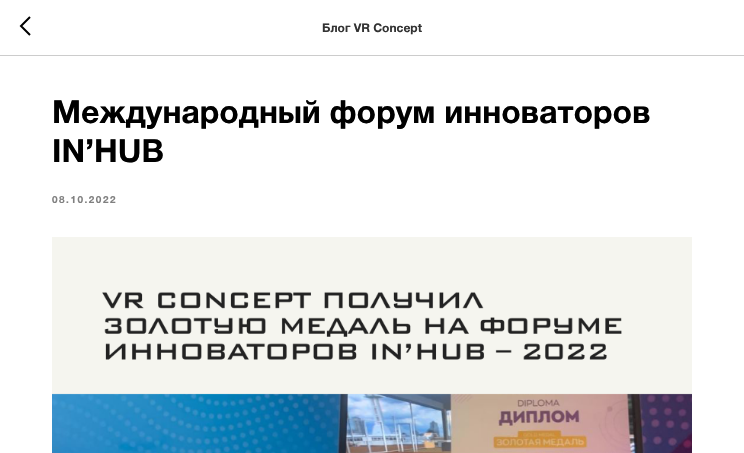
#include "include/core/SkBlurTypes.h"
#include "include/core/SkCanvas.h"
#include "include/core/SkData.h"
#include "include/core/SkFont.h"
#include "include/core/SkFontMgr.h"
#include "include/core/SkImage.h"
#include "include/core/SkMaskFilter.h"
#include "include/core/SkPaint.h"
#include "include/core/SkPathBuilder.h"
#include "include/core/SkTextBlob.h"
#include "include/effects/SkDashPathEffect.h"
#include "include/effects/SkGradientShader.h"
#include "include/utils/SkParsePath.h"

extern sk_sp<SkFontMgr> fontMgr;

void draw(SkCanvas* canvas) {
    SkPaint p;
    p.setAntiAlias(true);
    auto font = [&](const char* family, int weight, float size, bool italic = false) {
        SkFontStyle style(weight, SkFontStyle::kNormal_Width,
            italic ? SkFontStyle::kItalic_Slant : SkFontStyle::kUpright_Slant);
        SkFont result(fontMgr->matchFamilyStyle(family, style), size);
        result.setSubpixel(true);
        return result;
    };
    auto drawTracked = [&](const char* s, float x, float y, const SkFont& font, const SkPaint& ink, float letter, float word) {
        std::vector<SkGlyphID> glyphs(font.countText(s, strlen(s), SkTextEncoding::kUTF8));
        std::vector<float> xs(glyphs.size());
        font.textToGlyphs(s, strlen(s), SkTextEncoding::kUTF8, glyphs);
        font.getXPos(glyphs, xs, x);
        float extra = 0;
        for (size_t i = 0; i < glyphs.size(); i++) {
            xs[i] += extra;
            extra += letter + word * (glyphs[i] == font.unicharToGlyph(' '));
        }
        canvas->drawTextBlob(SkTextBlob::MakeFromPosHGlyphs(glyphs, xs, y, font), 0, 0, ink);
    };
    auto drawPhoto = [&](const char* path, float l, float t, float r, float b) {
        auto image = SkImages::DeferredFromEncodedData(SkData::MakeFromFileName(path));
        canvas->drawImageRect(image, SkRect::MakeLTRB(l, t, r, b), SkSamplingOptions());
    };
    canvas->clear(0xFFFFFFFF);
    p.setColor(0xFFCCCCCC);
    canvas->drawRect(SkRect::MakeLTRB(0, 55, 744, 56), p);
    p.setStyle(SkPaint::kStroke_Style);
    p.setStrokeWidth(2);
    p.setColor(0xFF000000);
    canvas->drawPath(SkPathBuilder().moveTo(30, 35).lineTo(21, 26).lineTo(30, 17).detach(), p);
    auto font1 = font("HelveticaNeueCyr", 700, 12);
    p.setStyle(SkPaint::kFill_Style);
    p.setColor(0xFF333333);
    canvas->drawString("Блог VR Concept", 322, 32, font1, p);
    auto font2 = font("HelveticaNeueCyr", 700, 32);
    p.setColor(0xFF000000);
    canvas->drawString("Международный форум инноваторов", 52, 123, font2, p);
    canvas->drawString("IN’HUB", 52, 162, font2, p);
    auto font3 = font("HelveticaNeueCyr", 700, 10);
    p.setColor(0xFF808080);
    drawTracked("08.10.2022", 52, 203, font3, p, 1.5f, 0);
    drawPhoto("media/1.png", 52, 237, 692, 453);
}
